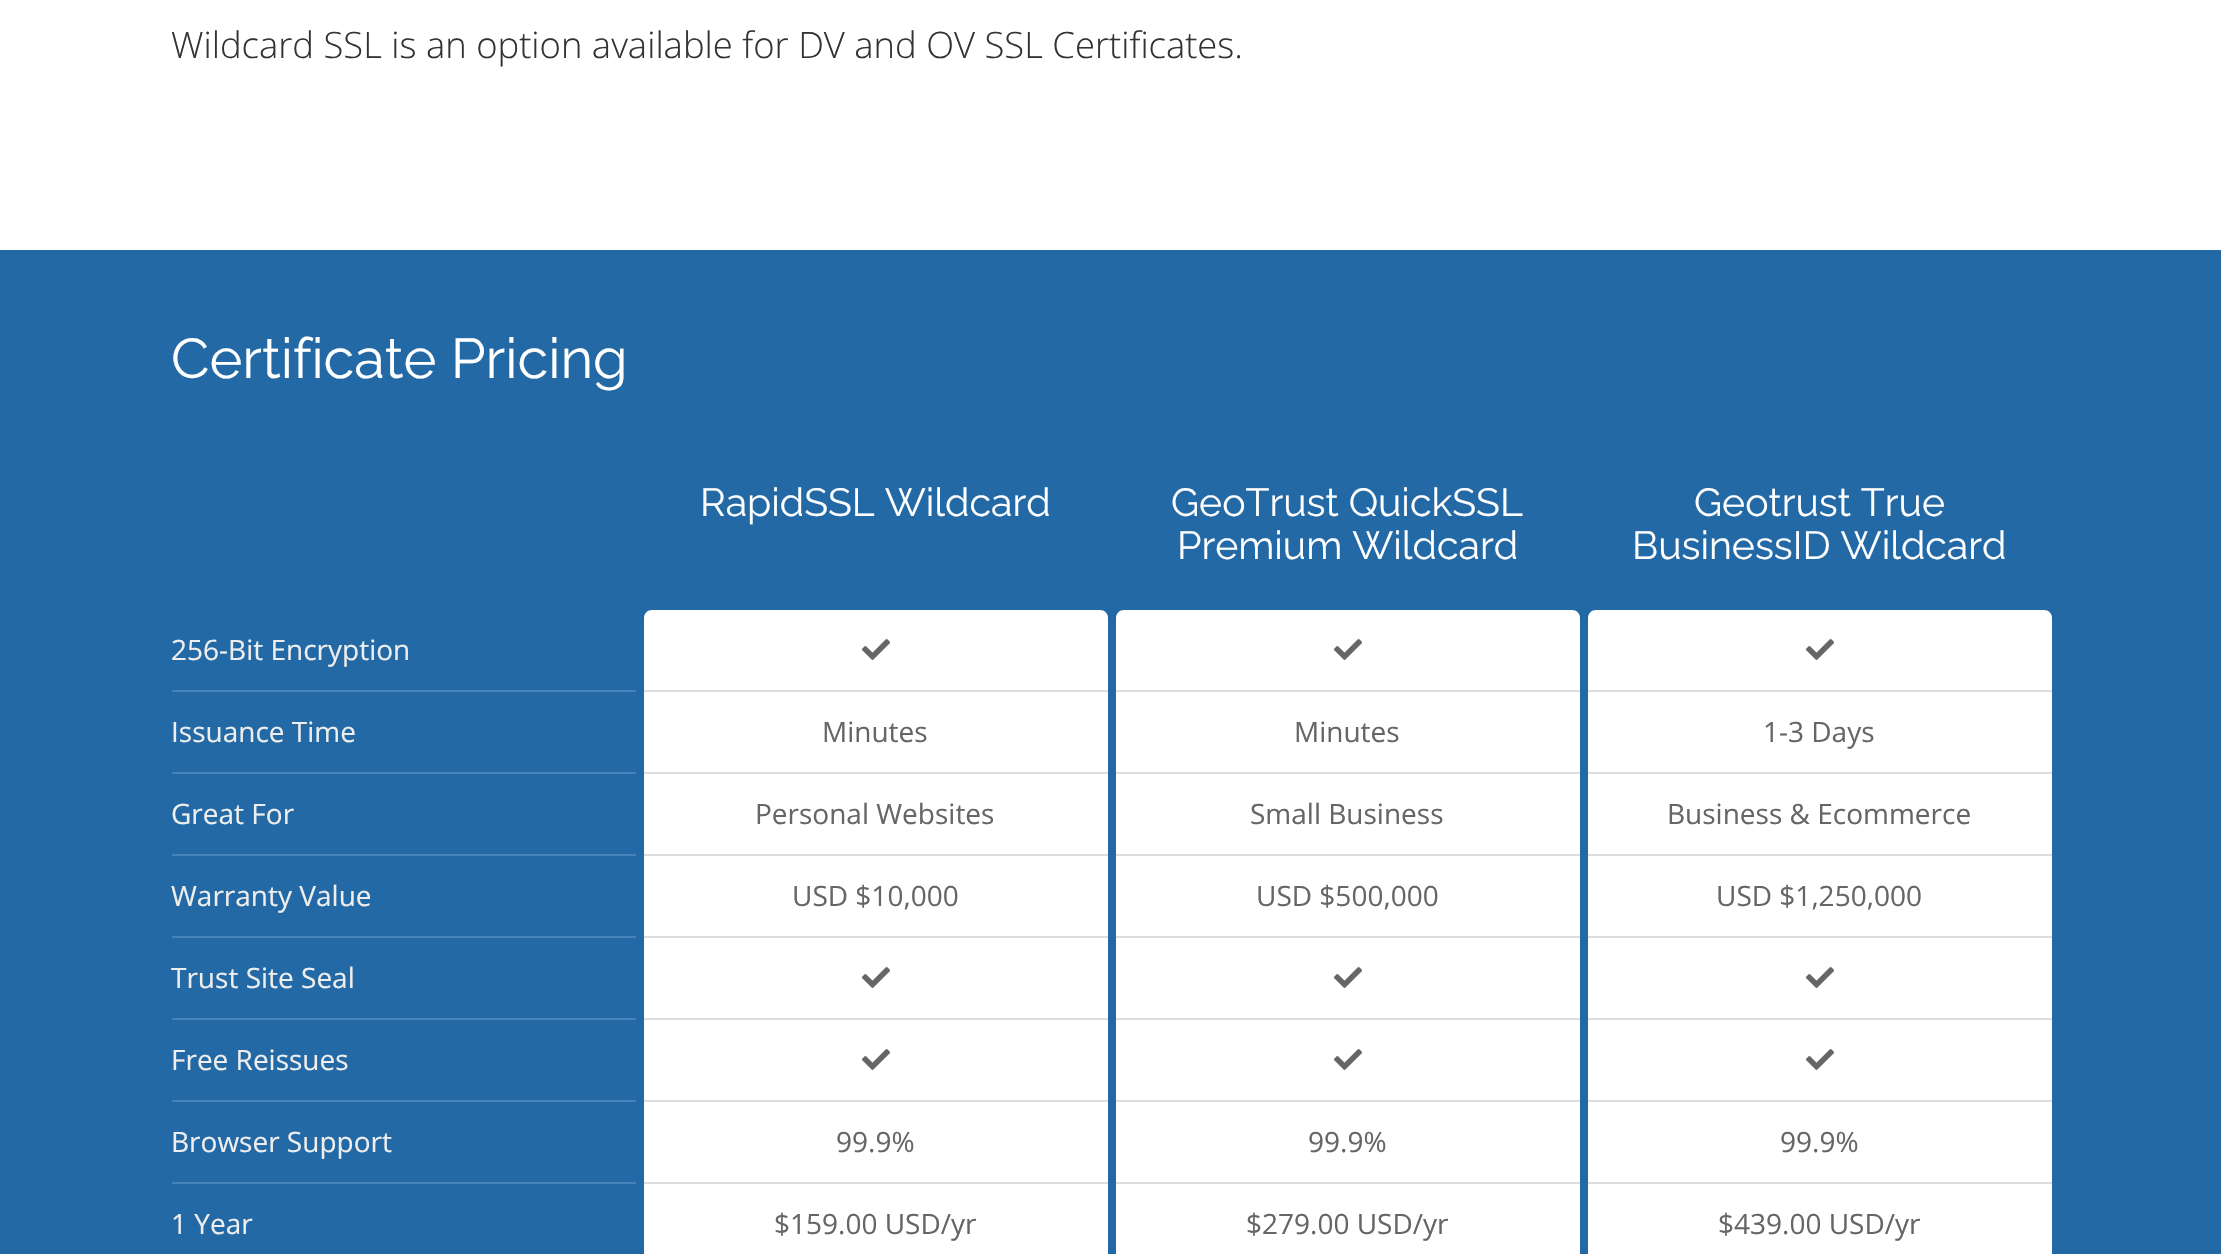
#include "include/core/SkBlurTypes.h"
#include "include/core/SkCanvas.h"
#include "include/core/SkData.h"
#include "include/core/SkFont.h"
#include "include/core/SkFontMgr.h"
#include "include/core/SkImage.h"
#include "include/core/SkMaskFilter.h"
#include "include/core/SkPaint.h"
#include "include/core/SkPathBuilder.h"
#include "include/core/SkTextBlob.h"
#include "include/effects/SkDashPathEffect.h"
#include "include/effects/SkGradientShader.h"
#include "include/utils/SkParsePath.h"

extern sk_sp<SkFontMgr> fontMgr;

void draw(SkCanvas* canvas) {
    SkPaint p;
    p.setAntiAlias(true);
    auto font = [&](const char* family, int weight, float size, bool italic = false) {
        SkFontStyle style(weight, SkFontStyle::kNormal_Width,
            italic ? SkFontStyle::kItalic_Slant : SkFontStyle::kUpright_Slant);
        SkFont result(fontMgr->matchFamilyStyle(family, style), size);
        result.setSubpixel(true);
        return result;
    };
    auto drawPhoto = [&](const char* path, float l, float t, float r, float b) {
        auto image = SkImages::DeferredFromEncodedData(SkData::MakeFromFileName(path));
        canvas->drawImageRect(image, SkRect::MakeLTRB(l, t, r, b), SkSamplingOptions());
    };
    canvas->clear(0xFFFFFFFF);
    auto font1 = font("Open Sans", 300, 36.4f);
    p.setColor(0xFF333333);
    canvas->drawString("Wildcard SSL is an option available for DV and OV SSL Certificates.", 171, 58, font1, p);
    p.setColor(0xFF2369A5);
    canvas->drawRect(SkRect::MakeLTRB(0, 250, 2221, 1254), p);
    auto font2 = font("Raleway", 400, 56);
    p.setColor(0xFFFFFFFF);
    canvas->drawString("Certificate Pricing", 171, 378, font2, p);
    p.setColor(0xFF4484BB);
    canvas->drawRect(SkRect::MakeLTRB(172, 690, 636, 692), p);
    auto font3 = font("Open Sans", 400, 28);
    p.setColor(0xFFEEEEEE);
    canvas->drawString("256-Bit Encryption", 171, 660, font3, p);
    p.setColor(0xFF4484BB);
    canvas->drawRect(SkRect::MakeLTRB(172, 772, 636, 774), p);
    p.setColor(0xFFEEEEEE);
    canvas->drawString("Issuance Time", 171, 742, font3, p);
    p.setColor(0xFF4484BB);
    canvas->drawRect(SkRect::MakeLTRB(172, 854, 636, 856), p);
    p.setColor(0xFFEEEEEE);
    canvas->drawString("Great For", 171, 824, font3, p);
    p.setColor(0xFF4484BB);
    canvas->drawRect(SkRect::MakeLTRB(172, 936, 636, 938), p);
    p.setColor(0xFFEEEEEE);
    canvas->drawString("Warranty Value", 171, 906, font3, p);
    p.setColor(0xFF4484BB);
    canvas->drawRect(SkRect::MakeLTRB(172, 1018, 636, 1020), p);
    p.setColor(0xFFEEEEEE);
    canvas->drawString("Trust Site Seal", 171, 988, font3, p);
    p.setColor(0xFF4484BB);
    canvas->drawRect(SkRect::MakeLTRB(172, 1100, 636, 1102), p);
    p.setColor(0xFFEEEEEE);
    canvas->drawString("Free Reissues", 171, 1070, font3, p);
    p.setColor(0xFF4484BB);
    canvas->drawRect(SkRect::MakeLTRB(172, 1182, 636, 1184), p);
    p.setColor(0xFFEEEEEE);
    canvas->drawString("Browser Support", 171, 1152, font3, p);
    canvas->drawString("1 Year", 171, 1234, font3, p);
    auto font4 = font("Raleway", 400, 39.25f);
    p.setColor(0xFFFFFFFF);
    canvas->drawString("RapidSSL Wildcard", 700, 516, font4, p);
    canvas->drawPath(SkPathBuilder().moveTo(652, 610).lineTo(1100, 610).cubicTo(1104.5f, 610, 1108, 613.5f, 1108, 618).lineTo(1108, 692).lineTo(644, 692).lineTo(644, 618).cubicTo(644, 613.5f, 647.5f, 610, 652, 610).close().detach(), p);
    p.setColor(0xFFDDDDDD);
    canvas->drawRect(SkRect::MakeLTRB(644, 690, 1108, 692), p);
    drawPhoto("media/1.png", 862, 639, 890, 660);
    p.setColor(0xFFFFFFFF);
    canvas->drawRect(SkRect::MakeLTRB(644, 692, 1108, 772), p);
    p.setColor(0xFFDDDDDD);
    canvas->drawRect(SkRect::MakeLTRB(644, 772, 1108, 774), p);
    p.setColor(0xFF666666);
    canvas->drawString("Minutes", 822, 742, font3, p);
    p.setColor(0xFFFFFFFF);
    canvas->drawRect(SkRect::MakeLTRB(644, 774, 1108, 854), p);
    p.setColor(0xFFDDDDDD);
    canvas->drawRect(SkRect::MakeLTRB(644, 854, 1108, 856), p);
    p.setColor(0xFF666666);
    canvas->drawString("Personal Websites", 755, 824, font3, p);
    p.setColor(0xFFFFFFFF);
    canvas->drawRect(SkRect::MakeLTRB(644, 856, 1108, 936), p);
    p.setColor(0xFFDDDDDD);
    canvas->drawRect(SkRect::MakeLTRB(644, 936, 1108, 938), p);
    p.setColor(0xFF666666);
    canvas->drawString("USD $10,000", 792, 906, font3, p);
    p.setColor(0xFFFFFFFF);
    canvas->drawRect(SkRect::MakeLTRB(644, 938, 1108, 1018), p);
    p.setColor(0xFFDDDDDD);
    canvas->drawRect(SkRect::MakeLTRB(644, 1018, 1108, 1020), p);
    drawPhoto("media/1.png", 862, 967, 890, 988);
    p.setColor(0xFFFFFFFF);
    canvas->drawRect(SkRect::MakeLTRB(644, 1020, 1108, 1100), p);
    p.setColor(0xFFDDDDDD);
    canvas->drawRect(SkRect::MakeLTRB(644, 1100, 1108, 1102), p);
    drawPhoto("media/1.png", 862, 1049, 890, 1070);
    p.setColor(0xFFFFFFFF);
    canvas->drawRect(SkRect::MakeLTRB(644, 1102, 1108, 1182), p);
    p.setColor(0xFFDDDDDD);
    canvas->drawRect(SkRect::MakeLTRB(644, 1182, 1108, 1184), p);
    p.setColor(0xFF666666);
    canvas->drawString("99.9%", 836, 1152, font3, p);
    p.setColor(0xFFFFFFFF);
    canvas->drawRect(SkRect::MakeLTRB(644, 1184, 1108, 1254), p);
    p.setColor(0xFF666666);
    canvas->drawString("$159.00 USD/yr", 774, 1234, font3, p);
    p.setColor(0xFFFFFFFF);
    canvas->drawString("GeoTrust QuickSSL", 1171, 516, font4, p);
    canvas->drawString("Premium Wildcard", 1177, 559, font4, p);
    canvas->drawPath(SkPathBuilder().moveTo(1124, 610).lineTo(1572, 610).cubicTo(1576.5f, 610, 1580, 613.5f, 1580, 618).lineTo(1580, 692).lineTo(1116, 692).lineTo(1116, 618).cubicTo(1116, 613.5f, 1119.5f, 610, 1124, 610).close().detach(), p);
    p.setColor(0xFFDDDDDD);
    canvas->drawRect(SkRect::MakeLTRB(1116, 690, 1580, 692), p);
    drawPhoto("media/1.png", 1334, 639, 1362, 660);
    p.setColor(0xFFFFFFFF);
    canvas->drawRect(SkRect::MakeLTRB(1116, 692, 1580, 772), p);
    p.setColor(0xFFDDDDDD);
    canvas->drawRect(SkRect::MakeLTRB(1116, 772, 1580, 774), p);
    p.setColor(0xFF666666);
    canvas->drawString("Minutes", 1294, 742, font3, p);
    p.setColor(0xFFFFFFFF);
    canvas->drawRect(SkRect::MakeLTRB(1116, 774, 1580, 854), p);
    p.setColor(0xFFDDDDDD);
    canvas->drawRect(SkRect::MakeLTRB(1116, 854, 1580, 856), p);
    p.setColor(0xFF666666);
    canvas->drawString("Small Business", 1250, 824, font3, p);
    p.setColor(0xFFFFFFFF);
    canvas->drawRect(SkRect::MakeLTRB(1116, 856, 1580, 936), p);
    p.setColor(0xFFDDDDDD);
    canvas->drawRect(SkRect::MakeLTRB(1116, 936, 1580, 938), p);
    p.setColor(0xFF666666);
    canvas->drawString("USD $500,000", 1256, 906, font3, p);
    p.setColor(0xFFFFFFFF);
    canvas->drawRect(SkRect::MakeLTRB(1116, 938, 1580, 1018), p);
    p.setColor(0xFFDDDDDD);
    canvas->drawRect(SkRect::MakeLTRB(1116, 1018, 1580, 1020), p);
    drawPhoto("media/1.png", 1334, 967, 1362, 988);
    p.setColor(0xFFFFFFFF);
    canvas->drawRect(SkRect::MakeLTRB(1116, 1020, 1580, 1100), p);
    p.setColor(0xFFDDDDDD);
    canvas->drawRect(SkRect::MakeLTRB(1116, 1100, 1580, 1102), p);
    drawPhoto("media/1.png", 1334, 1049, 1362, 1070);
    p.setColor(0xFFFFFFFF);
    canvas->drawRect(SkRect::MakeLTRB(1116, 1102, 1580, 1182), p);
    p.setColor(0xFFDDDDDD);
    canvas->drawRect(SkRect::MakeLTRB(1116, 1182, 1580, 1184), p);
    p.setColor(0xFF666666);
    canvas->drawString("99.9%", 1308, 1152, font3, p);
    p.setColor(0xFFFFFFFF);
    canvas->drawRect(SkRect::MakeLTRB(1116, 1184, 1580, 1254), p);
    p.setColor(0xFF666666);
    canvas->drawString("$279.00 USD/yr", 1246, 1234, font3, p);
    p.setColor(0xFFFFFFFF);
    canvas->drawString("Geotrust True", 1694, 516, font4, p);
    canvas->drawString("BusinessID Wildcard", 1632, 559, font4, p);
    canvas->drawPath(SkPathBuilder().moveTo(1596, 610).lineTo(2044, 610).cubicTo(2048.5f, 610, 2052, 613.5f, 2052, 618).lineTo(2052, 692).lineTo(1588, 692).lineTo(1588, 618).cubicTo(1588, 613.5f, 1591.5f, 610, 1596, 610).close().detach(), p);
    p.setColor(0xFFDDDDDD);
    canvas->drawRect(SkRect::MakeLTRB(1588, 690, 2052, 692), p);
    drawPhoto("media/1.png", 1806, 639, 1834, 660);
    p.setColor(0xFFFFFFFF);
    canvas->drawRect(SkRect::MakeLTRB(1588, 692, 2052, 772), p);
    p.setColor(0xFFDDDDDD);
    canvas->drawRect(SkRect::MakeLTRB(1588, 772, 2052, 774), p);
    p.setColor(0xFF666666);
    canvas->drawString("1-3 Days", 1763, 742, font3, p);
    p.setColor(0xFFFFFFFF);
    canvas->drawRect(SkRect::MakeLTRB(1588, 774, 2052, 854), p);
    p.setColor(0xFFDDDDDD);
    canvas->drawRect(SkRect::MakeLTRB(1588, 854, 2052, 856), p);
    p.setColor(0xFF666666);
    canvas->drawString("Business & Ecommerce", 1667, 824, font3, p);
    p.setColor(0xFFFFFFFF);
    canvas->drawRect(SkRect::MakeLTRB(1588, 856, 2052, 936), p);
    p.setColor(0xFFDDDDDD);
    canvas->drawRect(SkRect::MakeLTRB(1588, 936, 2052, 938), p);
    p.setColor(0xFF666666);
    canvas->drawString("USD $1,250,000", 1716, 906, font3, p);
    p.setColor(0xFFFFFFFF);
    canvas->drawRect(SkRect::MakeLTRB(1588, 938, 2052, 1018), p);
    p.setColor(0xFFDDDDDD);
    canvas->drawRect(SkRect::MakeLTRB(1588, 1018, 2052, 1020), p);
    drawPhoto("media/1.png", 1806, 967, 1834, 988);
    p.setColor(0xFFFFFFFF);
    canvas->drawRect(SkRect::MakeLTRB(1588, 1020, 2052, 1100), p);
    p.setColor(0xFFDDDDDD);
    canvas->drawRect(SkRect::MakeLTRB(1588, 1100, 2052, 1102), p);
    drawPhoto("media/1.png", 1806, 1049, 1834, 1070);
    p.setColor(0xFFFFFFFF);
    canvas->drawRect(SkRect::MakeLTRB(1588, 1102, 2052, 1182), p);
    p.setColor(0xFFDDDDDD);
    canvas->drawRect(SkRect::MakeLTRB(1588, 1182, 2052, 1184), p);
    p.setColor(0xFF666666);
    canvas->drawString("99.9%", 1780, 1152, font3, p);
    p.setColor(0xFFFFFFFF);
    canvas->drawRect(SkRect::MakeLTRB(1588, 1184, 2052, 1254), p);
    p.setColor(0xFF666666);
    canvas->drawString("$439.00 USD/yr", 1718, 1234, font3, p);
}
